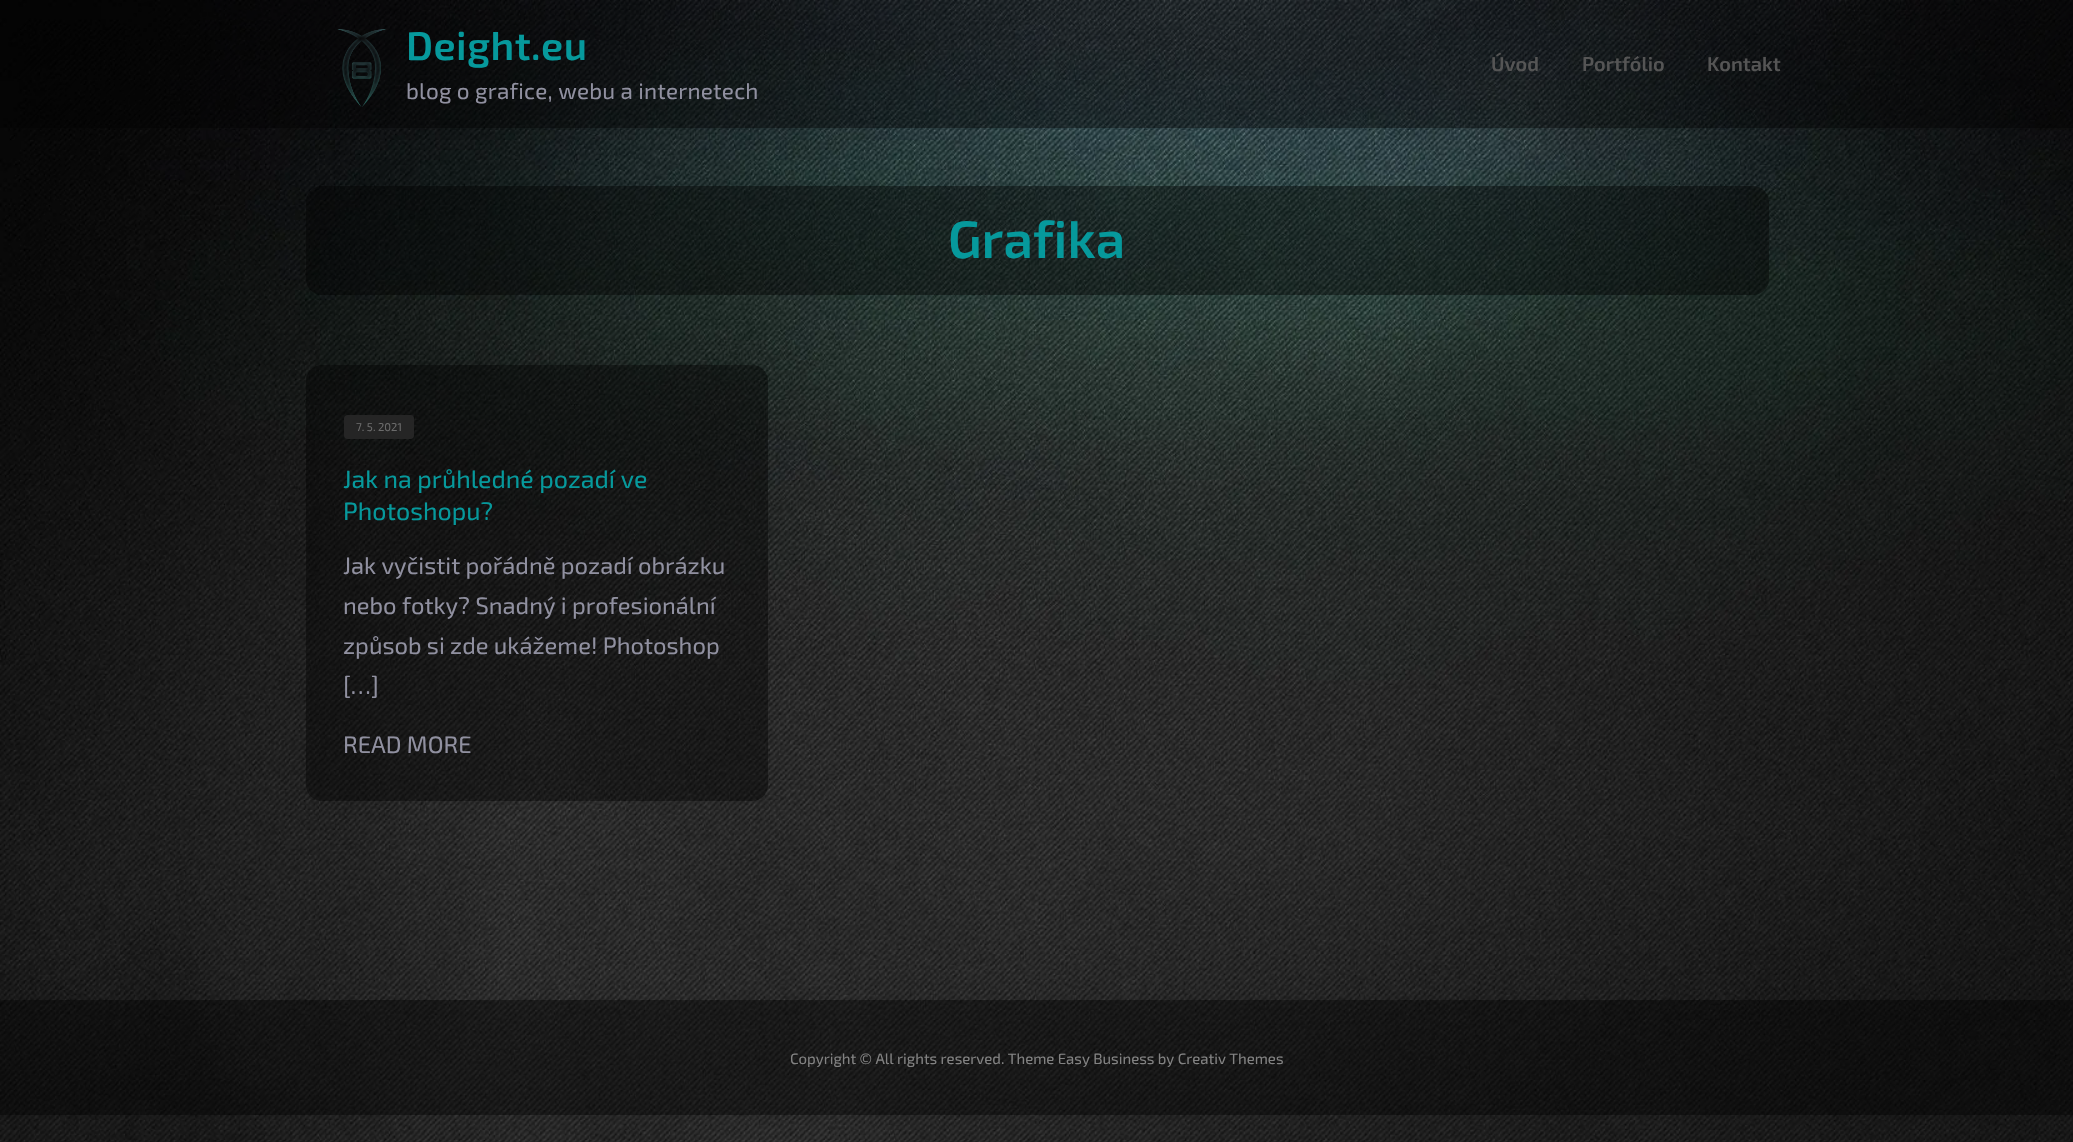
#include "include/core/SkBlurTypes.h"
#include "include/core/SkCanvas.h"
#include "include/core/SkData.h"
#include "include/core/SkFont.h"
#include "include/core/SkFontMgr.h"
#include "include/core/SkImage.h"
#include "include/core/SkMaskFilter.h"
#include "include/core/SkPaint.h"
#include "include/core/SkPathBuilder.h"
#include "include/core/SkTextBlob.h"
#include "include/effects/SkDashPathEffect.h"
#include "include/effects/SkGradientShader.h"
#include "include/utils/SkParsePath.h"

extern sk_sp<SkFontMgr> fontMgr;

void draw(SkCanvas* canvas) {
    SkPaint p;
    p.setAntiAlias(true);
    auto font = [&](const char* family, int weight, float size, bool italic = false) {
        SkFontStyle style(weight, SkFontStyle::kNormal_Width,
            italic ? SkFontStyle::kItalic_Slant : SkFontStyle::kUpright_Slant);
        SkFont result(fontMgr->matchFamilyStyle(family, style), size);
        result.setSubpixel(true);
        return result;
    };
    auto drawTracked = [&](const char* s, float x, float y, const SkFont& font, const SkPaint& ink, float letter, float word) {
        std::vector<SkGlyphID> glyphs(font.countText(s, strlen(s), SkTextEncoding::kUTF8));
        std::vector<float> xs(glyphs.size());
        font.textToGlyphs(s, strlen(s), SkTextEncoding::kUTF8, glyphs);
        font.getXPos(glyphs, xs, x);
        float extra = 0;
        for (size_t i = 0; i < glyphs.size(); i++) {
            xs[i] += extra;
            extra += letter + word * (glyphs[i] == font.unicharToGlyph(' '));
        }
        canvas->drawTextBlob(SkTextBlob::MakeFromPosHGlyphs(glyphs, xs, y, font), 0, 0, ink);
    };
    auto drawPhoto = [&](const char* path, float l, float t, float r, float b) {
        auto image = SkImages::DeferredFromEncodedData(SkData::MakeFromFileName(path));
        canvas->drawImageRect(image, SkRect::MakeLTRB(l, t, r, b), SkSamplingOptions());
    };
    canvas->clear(0xFFFFFFFF);
    drawPhoto("media/1.png", 0, 0, 2073, 1142);
    p.setColor(0x66000000);
    canvas->drawRect(SkRect::MakeLTRB(0, 0, 2073, 128), p);
    drawPhoto("media/2.png", 337, 29, 386, 107);
    auto font1 = font("Exo 2", 600, 40);
    p.setColor(0xFF06999C);
    drawTracked("Deight.eu", 406, 60, font1, p, 0.5f, 0);
    auto font2 = font("Exo 2", 400, 22.5f);
    p.setColor(0xFF9090A0);
    drawTracked("blog o grafice, webu a internetech", 406, 99, font2, p, 0.2f, 0);
    auto font3 = font("Exo 2", 600, 20);
    p.setColor(0xFF555555);
    {
        const struct { const char* s; float x, y; } items[] = {
            {"Úvod", 1491, 71},
            {"Portfólio", 1582, 71},
            {"Kontakt", 1707, 71},
        };
        for (auto [s, x, y] : items) {
            canvas->drawString(s, x, y, font3, p);
        }
    }
    p.setColor(0x66000000);
    canvas->drawRoundRect(SkRect::MakeLTRB(306, 186, 1769, 295), 16, 16, p);
    auto font4 = font("Exo 2", 600, 52.5f);
    p.setColor(0xFF06999C);
    canvas->drawString("Grafika", 948, 258, font4, p);
    p.setColor(0x66000000);
    canvas->drawRoundRect(SkRect::MakeLTRB(306, 365, 768, 801), 16, 16, p);
    p.setColor(0xFF252525);
    canvas->drawRoundRect(SkRect::MakeLTRB(344, 415, 414, 439), 4, 4, p);
    auto font5 = font("Exo 2", 400, 11.25f);
    p.setColor(0xFF6B6B6B);
    canvas->drawString("7. 5. 2021", 356, 431, font5, p);
    auto font6 = font("Exo 2", 400, 25);
    p.setColor(0xFF06999C);
    canvas->drawString("Jak na průhledné pozadí ve", 343, 488, font6, p);
    canvas->drawString("Photoshopu?", 343, 520, font6, p);
    auto font7 = font("Exo 2", 400, 23.75f);
    p.setColor(0xFF9090A0);
    {
        const struct { const char* s; float x, y; } items[] = {
            {"Jak vyčistit pořádně pozadí obrázku", 343, 574},
            {"nebo fotky? Snadný i profesionální", 343, 614},
            {"způsob si zde ukážeme! Photoshop", 343, 654},
            {"[…]", 343, 694},
            {"READ MORE", 343, 753},
        };
        for (auto [s, x, y] : items) {
            canvas->drawString(s, x, y, font7, p);
        }
    }
    p.setColor(0x66000000);
    canvas->drawRect(SkRect::MakeLTRB(0, 1000, 2073, 1115), p);
    auto font8 = font("Exo 2", 400, 15);
    p.setColor(0xFF828282);
    canvas->drawString("Copyright © All rights reserved. Theme Easy Business by Creativ Themes", 790, 1064, font8, p);
}
